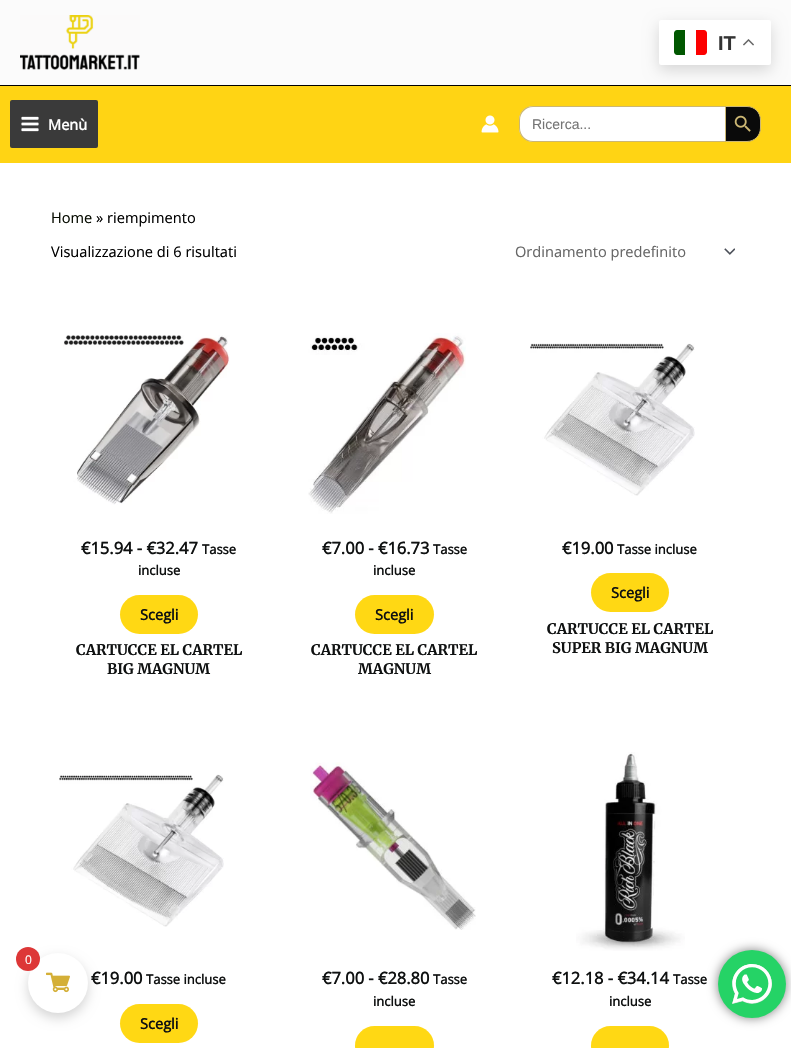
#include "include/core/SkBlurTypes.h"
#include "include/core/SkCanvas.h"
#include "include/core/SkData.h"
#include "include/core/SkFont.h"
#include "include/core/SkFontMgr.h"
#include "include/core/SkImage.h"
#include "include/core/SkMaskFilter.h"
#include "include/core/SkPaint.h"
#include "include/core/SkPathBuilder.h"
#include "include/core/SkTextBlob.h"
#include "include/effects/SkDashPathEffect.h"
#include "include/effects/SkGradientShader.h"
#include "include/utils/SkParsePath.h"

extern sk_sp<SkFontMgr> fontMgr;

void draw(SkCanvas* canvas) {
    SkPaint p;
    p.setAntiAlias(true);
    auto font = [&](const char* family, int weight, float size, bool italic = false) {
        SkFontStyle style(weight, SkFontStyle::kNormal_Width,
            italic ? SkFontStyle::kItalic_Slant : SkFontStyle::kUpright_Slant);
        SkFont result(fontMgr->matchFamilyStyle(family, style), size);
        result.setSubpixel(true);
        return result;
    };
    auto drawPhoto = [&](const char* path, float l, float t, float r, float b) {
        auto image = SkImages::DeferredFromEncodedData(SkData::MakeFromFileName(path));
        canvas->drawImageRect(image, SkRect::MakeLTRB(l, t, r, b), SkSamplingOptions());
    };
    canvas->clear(0xFFFFFFFF);
    {
        const struct { float l, t, r, b; SkColor color; } items[] = {
            {0, 0, 791, 85, 0xFFFBFBFB},
            {0, 85, 791, 86, 0xFF000000},
            {0, 86, 791, 163, 0xFFFFD414},
        };
        for (auto [l, t, r, b, color] : items) {
            p.setColor(color);
            canvas->drawRect(SkRect::MakeLTRB(l, t, r, b), p);
        }
    }
    p.setColor(0x26000000);
    p.setMaskFilter(SkMaskFilter::MakeBlur(kNormal_SkBlurStyle, 7.5f));
    canvas->drawRoundRect(SkRect::MakeLTRB(659, 25, 771, 70), 2, 2, p);
    p.setMaskFilter(nullptr);
    p.setColor(0xFFFFFFFF);
    canvas->drawRoundRect(SkRect::MakeLTRB(659, 20, 771, 65), 2, 2, p);
    p.setColor(0xFF005700);
    canvas->drawPath(SkPathBuilder().moveTo(677, 30).lineTo(685, 30).lineTo(685, 55).lineTo(677, 55).cubicTo(675.5f, 55, 674, 53.5f, 674, 52).lineTo(674, 33).cubicTo(674, 31.5f, 675.5f, 30, 677, 30).close().detach(), p);
    p.setColor(0xFFFC0000);
    canvas->drawPath(SkPathBuilder().moveTo(696, 30).lineTo(704, 30).cubicTo(705.5f, 30, 707, 31.5f, 707, 33).lineTo(707, 52).cubicTo(707, 53.5f, 705.5f, 55, 704, 55).lineTo(696, 55).close().detach(), p);
    auto font1 = font("Liberation Sans", 700, 20);
    p.setColor(0xFF333333);
    canvas->drawString("IT", 718, 50, font1, p);
    drawPhoto("media/1.png", 743, 39, 754, 46);
    p.setColor(0x2B000000);
    p.setMaskFilter(SkMaskFilter::MakeBlur(kNormal_SkBlurStyle, 6));
    canvas->drawRoundRect(SkRect::MakeLTRB(28, 958, 88, 1018), 30, 30, p);
    p.setMaskFilter(nullptr);
    p.setColor(0xFFFFFFFF);
    canvas->drawCircle(58, 983, 30, p);
    p.setColor(0xFFDD3737);
    canvas->drawCircle(28, 959, 12, p);
    auto font2 = font("Open Sans", 400, 12);
    p.setColor(0xFFFFFFFF);
    canvas->drawString("0", 25, 964, font2, p);
    drawPhoto("media/2.png", 46, 972, 70, 993);
    drawPhoto("media/3.png", 20, 15, 140, 70);
    p.setColor(0xFF3A3A3A);
    canvas->drawRoundRect(SkRect::MakeLTRB(10, 100, 98, 148), 2, 2, p);
    drawPhoto("media/4.png", 21, 116, 39, 132);
    auto font3 = font("Open Sans", 700, 14.6f);
    p.setColor(0xFFFFFFFF);
    canvas->drawString("Menù", 48, 130, font3, p);
    drawPhoto("media/5.png", 481, 115, 499, 133);
    canvas->drawPath(SkPathBuilder().moveTo(533, 106).lineTo(725, 106).lineTo(725, 142).lineTo(533, 142).cubicTo(525.5f, 142, 519, 135.5f, 519, 128).lineTo(519, 120).cubicTo(519, 112.5f, 525.5f, 106, 533, 106).close().detach(), p);
    p.setColor(0xFFCCB773);
    canvas->drawPath(SkPathBuilder(SkPathFillType::kEvenOdd).moveTo(533, 106).lineTo(725, 106).lineTo(725, 142).lineTo(533, 142).cubicTo(525, 142, 519, 136, 519, 128).lineTo(519, 120).cubicTo(519, 112, 525, 106, 533, 106).close().moveTo(533, 107).lineTo(725, 107).lineTo(725, 141).lineTo(533, 141).cubicTo(526, 141, 520, 135, 520, 128).lineTo(520, 120).cubicTo(520, 113, 526, 107, 533, 107).close().detach(), p);
    auto font4 = font("Liberation Sans", 400, 14);
    p.setColor(0xFF757575);
    canvas->drawString("Ricerca...", 532, 129, font4, p);
    p.setColor(0xFF0A0A0A);
    canvas->drawPath(SkPathBuilder().moveTo(725.5f, 106.5f).lineTo(747, 106.5f).cubicTo(754.5f, 106.5f, 760.5f, 112.5f, 760.5f, 120).lineTo(760.5f, 128).cubicTo(760.5f, 135.5f, 754.5f, 141.5f, 747, 141.5f).lineTo(725.5f, 141.5f).close().detach(), p);
    p.setStyle(SkPaint::kStroke_Style);
    p.setStrokeWidth(1);
    p.setColor(0xFFCCB773);
    canvas->drawPath(SkPathBuilder().moveTo(725.5f, 106.5f).lineTo(747, 106.5f).cubicTo(754.5f, 106.5f, 760.5f, 112.5f, 760.5f, 120).lineTo(760.5f, 128).cubicTo(760.5f, 135.5f, 754.5f, 141.5f, 747, 141.5f).lineTo(725.5f, 141.5f).close().detach(), p);
    drawPhoto("media/6.png", 734, 115, 751, 132);
    auto font5 = font("Open Sans", 400, 14.6f);
    p.setStyle(SkPaint::kFill_Style);
    p.setColor(0xFF060B00);
    canvas->drawString("Home", 51, 223, font5, p);
    p.setColor(0xFF000000);
    canvas->drawString("» riempimento", 96, 223, font5, p);
    canvas->drawString("Visualizzazione di 6 risultati", 51, 257, font5, p);
    drawPhoto("media/7.png", 724, 248, 735, 255);
    p.setColor(0xFF666666);
    canvas->drawString("Ordinamento predefinito", 515, 257, font5, p);
    drawPhoto("media/8.png", 63, 335, 230, 505);
    auto font6 = font("Open Sans", 700, 16.5f);
    p.setColor(0xFF0F1111);
    canvas->drawString("€15.94 - €32.47", 81, 554, font6, p);
    auto font7 = font("Open Sans", 700, 13);
    canvas->drawString("Tasse", 202, 554, font7, p);
    canvas->drawString("incluse", 138, 575, font7, p);
    p.setColor(0xFFFFD814);
    canvas->drawRoundRect(SkRect::MakeLTRB(120, 595, 198, 634), 19.5f, 19.5f, p);
    p.setColor(0xFF0F1111);
    canvas->drawString("Scegli", 140, 620, font3, p);
    auto font8 = font("Merriweather", 300, 14.6f);
    canvas->drawString("CARTUCCE EL CARTEL", 76, 655, font8, p);
    canvas->drawString("BIG MAGNUM", 107, 674, font8, p);
    drawPhoto("media/9.png", 308, 333, 466, 514);
    canvas->drawString("€7.00 - €16.73", 322, 554, font6, p);
    canvas->drawString("Tasse", 433, 554, font7, p);
    canvas->drawString("incluse", 373, 575, font7, p);
    p.setColor(0xFFFFD814);
    canvas->drawRoundRect(SkRect::MakeLTRB(355, 595, 434, 634), 19.5f, 19.5f, p);
    p.setColor(0xFF0F1111);
    canvas->drawString("Scegli", 375, 620, font3, p);
    canvas->drawString("CARTUCCE EL CARTEL", 311, 655, font8, p);
    canvas->drawString("MAGNUM", 358, 674, font8, p);
    drawPhoto("media/10.png", 530, 343, 695, 496);
    canvas->drawString("€19.00", 562, 554, font6, p);
    canvas->drawString("Tasse incluse", 617, 554, font7, p);
    p.setColor(0xFFFFD814);
    canvas->drawRoundRect(SkRect::MakeLTRB(591, 573, 669, 612), 19.5f, 19.5f, p);
    p.setColor(0xFF0F1111);
    canvas->drawString("Scegli", 611, 598, font3, p);
    canvas->drawString("CARTUCCE EL CARTEL", 547, 634, font8, p);
    canvas->drawString("SUPER BIG MAGNUM", 552, 653, font8, p);
    drawPhoto("media/11.png", 59, 774, 224, 927);
    canvas->drawString("€19.00", 91, 984, font6, p);
    canvas->drawString("Tasse incluse", 146, 984, font7, p);
    p.setColor(0xFFFFD814);
    canvas->drawRoundRect(SkRect::MakeLTRB(120, 1004, 198, 1043), 19.5f, 19.5f, p);
    p.setColor(0xFF0F1111);
    canvas->drawString("Scegli", 140, 1029, font3, p);
    drawPhoto("media/12.png", 310, 762, 476, 930);
    canvas->drawString("€7.00 - €28.80", 322, 984, font6, p);
    canvas->drawString("Tasse", 433, 984, font7, p);
    canvas->drawString("incluse", 373, 1006, font7, p);
    p.setColor(0xFFFFD814);
    canvas->drawRoundRect(SkRect::MakeLTRB(355, 1026, 434, 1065), 19.5f, 19.5f, p);
    drawPhoto("media/13.png", 576, 752, 685, 951);
    p.setColor(0xFF0F1111);
    canvas->drawString("€12.18 - €34.14", 552, 984, font6, p);
    canvas->drawString("Tasse", 673, 984, font7, p);
    canvas->drawString("incluse", 609, 1006, font7, p);
    p.setColor(0xFFFFD814);
    canvas->drawRoundRect(SkRect::MakeLTRB(591, 1026, 669, 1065), 19.5f, 19.5f, p);
    p.setColor(0x80000000);
    p.setMaskFilter(SkMaskFilter::MakeBlur(kNormal_SkBlurStyle, 5.5f));
    canvas->drawRoundRect(SkRect::MakeLTRB(718, 950, 786, 1018), 34, 34, p);
    p.setMaskFilter(nullptr);
    p.setColor(0xFF25D366);
    canvas->drawCircle(752, 984, 34, p);
    drawPhoto("media/14.png", 732, 964, 772, 1004);
}
